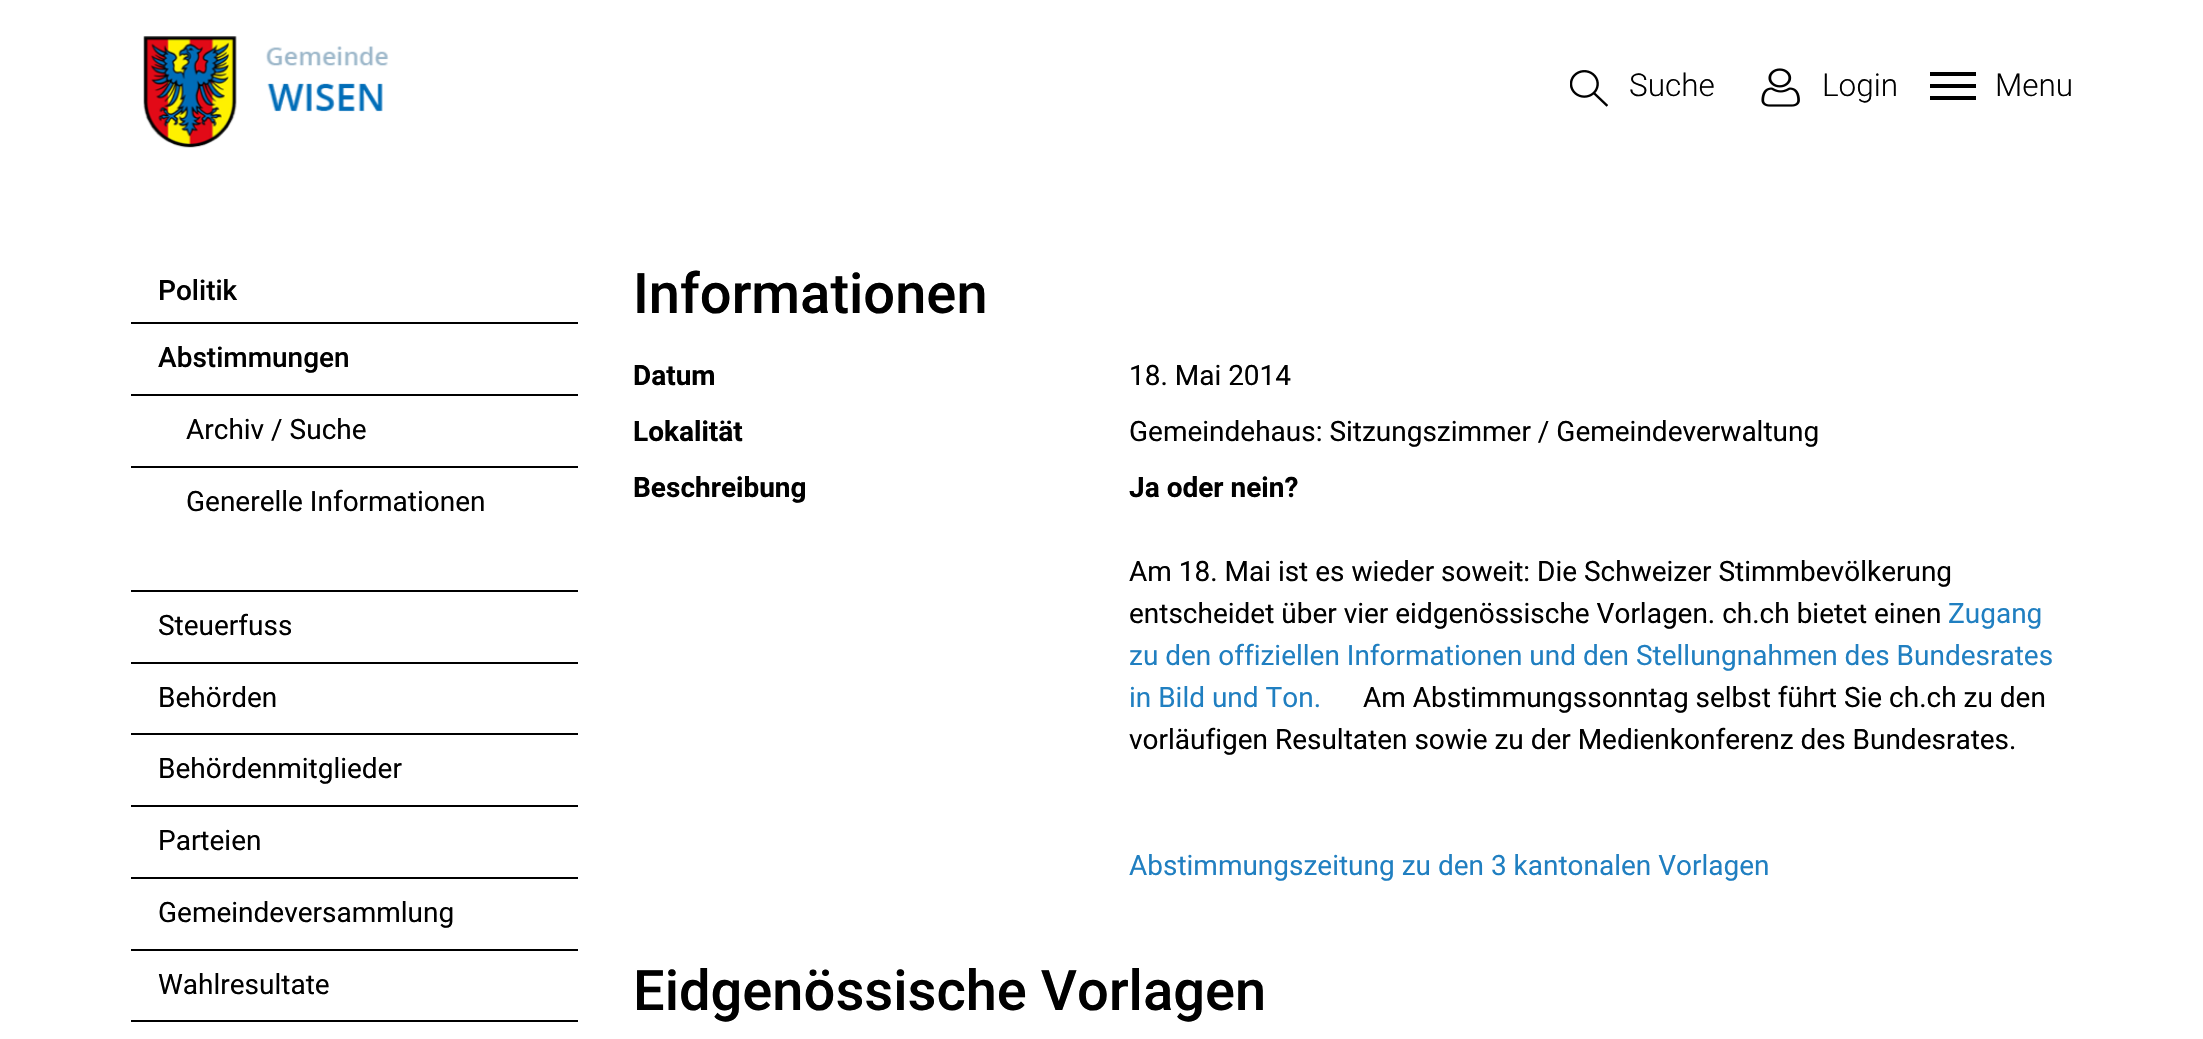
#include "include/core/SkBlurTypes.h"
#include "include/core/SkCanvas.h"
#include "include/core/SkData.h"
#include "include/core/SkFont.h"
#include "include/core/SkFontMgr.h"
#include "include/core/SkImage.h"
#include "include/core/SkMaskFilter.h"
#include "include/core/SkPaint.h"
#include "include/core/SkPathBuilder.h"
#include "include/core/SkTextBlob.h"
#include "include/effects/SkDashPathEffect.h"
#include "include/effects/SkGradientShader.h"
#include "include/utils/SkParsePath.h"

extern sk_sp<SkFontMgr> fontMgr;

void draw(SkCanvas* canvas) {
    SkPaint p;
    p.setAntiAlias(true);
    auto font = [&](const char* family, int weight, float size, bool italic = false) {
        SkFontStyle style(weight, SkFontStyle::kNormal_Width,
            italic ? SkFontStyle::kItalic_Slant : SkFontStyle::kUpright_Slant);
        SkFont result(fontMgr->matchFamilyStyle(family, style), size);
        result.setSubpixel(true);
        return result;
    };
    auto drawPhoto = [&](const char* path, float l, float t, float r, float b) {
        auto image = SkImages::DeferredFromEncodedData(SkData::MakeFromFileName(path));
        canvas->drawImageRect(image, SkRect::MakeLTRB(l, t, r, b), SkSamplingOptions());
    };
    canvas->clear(0xFFFFFFFF);
    drawPhoto("media/1.png", 143, 36, 389, 148);
    drawPhoto("media/2.png", 1570, 70, 1608, 107);
    auto font1 = font("Roboto", 300, 31.5f);
    p.setColor(0xFF000000);
    canvas->drawString("Suche", 1629, 96, font1, p);
    drawPhoto("media/3.png", 1761, 68, 1800, 107);
    canvas->drawString("Login", 1822, 96, font1, p);
    {
        const struct { float l, t, r, b; SkColor color; } items[] = {
            {1930, 72, 1976, 76, 0xFF000000},
            {1930, 84, 1976, 88, 0xFF000000},
            {1930, 96, 1976, 100, 0xFF000000},
        };
        for (auto [l, t, r, b, color] : items) {
            p.setColor(color);
            canvas->drawRect(SkRect::MakeLTRB(l, t, r, b), p);
        }
    }
    canvas->drawString("Menu", 1995, 96, font1, p);
    canvas->drawRect(SkRect::MakeLTRB(131, 322, 578, 324), p);
    auto font2 = font("Roboto", 500, 28);
    canvas->drawString("Politik", 158, 300, font2, p);
    canvas->drawRect(SkRect::MakeLTRB(131, 590, 578, 592), p);
    canvas->drawString("Abstimmungen", 158, 367, font2, p);
    canvas->drawRect(SkRect::MakeLTRB(131, 394, 578, 396), p);
    canvas->drawRect(SkRect::MakeLTRB(131, 466, 578, 468), p);
    auto font3 = font("Roboto", 400, 28);
    canvas->drawString("Archiv / Suche", 186, 439, font3, p);
    canvas->drawString("Generelle Informationen", 186, 511, font3, p);
    canvas->drawRect(SkRect::MakeLTRB(131, 662, 578, 664), p);
    canvas->drawString("Steuerfuss", 158, 635, font3, p);
    canvas->drawRect(SkRect::MakeLTRB(131, 733, 578, 735), p);
    canvas->drawString("Behörden", 158, 707, font3, p);
    canvas->drawRect(SkRect::MakeLTRB(131, 805, 578, 807), p);
    canvas->drawString("Behördenmitglieder", 158, 778, font3, p);
    canvas->drawRect(SkRect::MakeLTRB(131, 877, 578, 879), p);
    canvas->drawString("Parteien", 158, 850, font3, p);
    canvas->drawRect(SkRect::MakeLTRB(131, 949, 578, 951), p);
    canvas->drawString("Gemeindeversammlung", 158, 922, font3, p);
    canvas->drawRect(SkRect::MakeLTRB(131, 1020, 578, 1022), p);
    canvas->drawString("Wahlresultate", 158, 994, font3, p);
    auto font4 = font("Roboto", 500, 56);
    canvas->drawString("Informationen", 633, 313, font4, p);
    auto font5 = font("Roboto", 700, 28);
    canvas->drawString("Datum", 633, 385, font5, p);
    canvas->drawString("18. Mai 2014", 1129, 385, font3, p);
    canvas->drawString("Lokalität", 633, 441, font5, p);
    canvas->drawString("Gemeindehaus: Sitzungszimmer / Gemeindeverwaltung", 1129, 441, font3, p);
    canvas->drawString("Beschreibung", 633, 497, font5, p);
    canvas->drawString("Ja oder nein?", 1129, 497, font5, p);
    canvas->drawString("Am 18. Mai ist es wieder soweit: Die Schweizer Stimmbevölkerung", 1129, 581, font3, p);
    canvas->drawString("entscheidet über vier eidgenössische Vorlagen. ch.ch bietet einen", 1129, 623, font3, p);
    p.setColor(0xFF207FC1);
    {
        const struct { const char* s; float x, y; } items[] = {
            {"Zugang", 1948, 623},
            {"zu den offiziellen Informationen und den Stellungnahmen des Bundesrates", 1129, 665},
            {"in Bild und Ton.", 1129, 707},
        };
        for (auto [s, x, y] : items) {
            canvas->drawString(s, x, y, font3, p);
        }
    }
    p.setColor(0xFF000000);
    canvas->drawString("Am Abstimmungssonntag selbst führt Sie ch.ch zu den", 1363, 707, font3, p);
    canvas->drawString("vorläufigen Resultaten sowie zu der Medienkonferenz des Bundesrates.", 1129, 749, font3, p);
    p.setColor(0xFF207FC1);
    canvas->drawString("Abstimmungszeitung zu den 3 kantonalen Vorlagen", 1129, 875, font3, p);
    p.setColor(0xFF000000);
    canvas->drawString("Eidgenössische Vorlagen", 633, 1010, font4, p);
}
